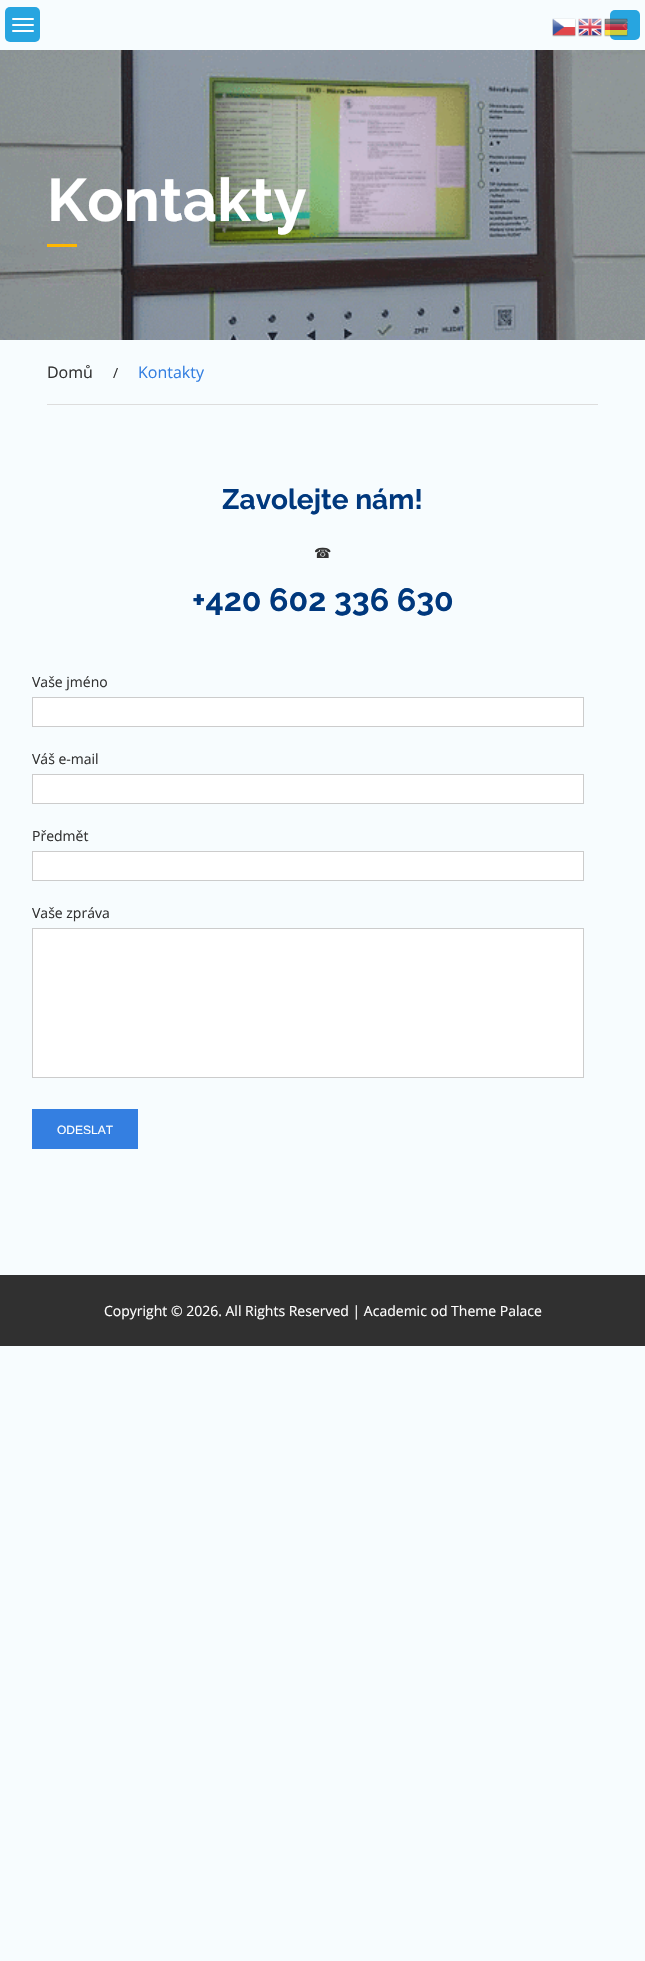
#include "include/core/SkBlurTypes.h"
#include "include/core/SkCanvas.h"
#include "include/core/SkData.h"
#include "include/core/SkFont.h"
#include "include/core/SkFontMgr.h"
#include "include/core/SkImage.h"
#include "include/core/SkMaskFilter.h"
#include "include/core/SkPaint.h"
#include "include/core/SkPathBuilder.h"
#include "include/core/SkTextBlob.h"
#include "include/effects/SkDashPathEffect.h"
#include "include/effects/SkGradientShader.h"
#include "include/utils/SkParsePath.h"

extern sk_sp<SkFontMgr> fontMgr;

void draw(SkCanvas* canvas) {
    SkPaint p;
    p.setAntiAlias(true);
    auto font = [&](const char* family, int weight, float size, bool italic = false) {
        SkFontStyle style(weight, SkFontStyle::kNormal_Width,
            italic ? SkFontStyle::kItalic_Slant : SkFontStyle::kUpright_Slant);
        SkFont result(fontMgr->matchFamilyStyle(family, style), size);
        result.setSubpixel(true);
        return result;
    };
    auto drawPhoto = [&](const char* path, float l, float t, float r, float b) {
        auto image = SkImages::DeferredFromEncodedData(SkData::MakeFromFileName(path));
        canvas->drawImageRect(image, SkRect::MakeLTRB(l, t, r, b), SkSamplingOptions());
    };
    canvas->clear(0xFFF7FCFE);
    p.setColor(0xFF27A5E0);
    canvas->drawRoundRect(SkRect::MakeLTRB(5, 7, 40, 42), 5, 5, p);
    p.setColor(0xFFFFFFFF);
    canvas->drawRoundRect(SkRect::MakeLTRB(12, 24, 34, 26), 1, 1, p);
    canvas->drawRoundRect(SkRect::MakeLTRB(12, 18, 34, 20), 1, 1, p);
    canvas->drawRoundRect(SkRect::MakeLTRB(12, 30, 34, 32), 1, 1, p);
    p.setColor(0xFF27A5E0);
    canvas->drawRoundRect(SkRect::MakeLTRB(610, 10, 640, 40), 5, 5, p);
    drawPhoto("media/1.png", 622, 21, 628, 31);
    drawPhoto("media/2.png", 552, 18, 576, 37);
    drawPhoto("media/3.png", 578, 18, 602, 37);
    drawPhoto("media/4.png", 604, 18, 628, 37);
    drawPhoto("media/5.png", 0, 50, 645, 340);
    auto font1 = font("Raleway", 700, 60);
    p.setColor(0xFFFFFFFF);
    canvas->drawString("Kontakty", 47, 221, font1, p);
    p.setColor(0xFFFFB700);
    canvas->drawRect(SkRect::MakeLTRB(47, 244, 77, 247), p);
    p.setColor(0xFFDDDDDD);
    canvas->drawRect(SkRect::MakeLTRB(47, 404, 598, 405), p);
    auto font2 = font("Open Sans", 400, 16);
    p.setColor(0xFF333333);
    canvas->drawString("Domů", 47, 378, font2, p);
    auto font3 = font("Open Sans", 400, 14);
    canvas->drawString("/", 113, 378, font3, p);
    p.setColor(0xFF347FE1);
    canvas->drawString("Kontakty", 138, 378, font2, p);
    auto font4 = font("Raleway", 700, 28);
    p.setColor(0xFF00387D);
    canvas->drawString("Zavolejte nám!", 222, 509, font4, p);
    auto font5 = font("DejaVu Sans", 400, 14);
    p.setColor(0xFF333333);
    canvas->drawString("☎", 314, 558, font5, p);
    auto font6 = font("Raleway", 700, 32);
    p.setColor(0xFF00387D);
    canvas->drawString("+420 602 336 630", 192, 611, font6, p);
    p.setColor(0xFF333333);
    canvas->drawString("Vaše jméno", 32, 687, font3, p);
    p.setColor(0xFFFFFFFF);
    canvas->drawRect(SkRect::MakeLTRB(32.5f, 697.5f, 583.5f, 726.5f), p);
    p.setStyle(SkPaint::kStroke_Style);
    p.setStrokeWidth(1);
    p.setColor(0xFFCCCCCC);
    canvas->drawRect(SkRect::MakeLTRB(32.5f, 697.5f, 583.5f, 726.5f), p);
    p.setStyle(SkPaint::kFill_Style);
    p.setColor(0xFF333333);
    canvas->drawString("Váš e-mail", 32, 764, font3, p);
    p.setColor(0xFFFFFFFF);
    canvas->drawRect(SkRect::MakeLTRB(32.5f, 774.5f, 583.5f, 803.5f), p);
    p.setStyle(SkPaint::kStroke_Style);
    p.setColor(0xFFCCCCCC);
    canvas->drawRect(SkRect::MakeLTRB(32.5f, 774.5f, 583.5f, 803.5f), p);
    p.setStyle(SkPaint::kFill_Style);
    p.setColor(0xFF333333);
    canvas->drawString("Předmět", 32, 841, font3, p);
    p.setColor(0xFFFFFFFF);
    canvas->drawRect(SkRect::MakeLTRB(32.5f, 851.5f, 583.5f, 880.5f), p);
    p.setStyle(SkPaint::kStroke_Style);
    p.setColor(0xFFCCCCCC);
    canvas->drawRect(SkRect::MakeLTRB(32.5f, 851.5f, 583.5f, 880.5f), p);
    p.setStyle(SkPaint::kFill_Style);
    p.setColor(0xFF333333);
    canvas->drawString("Vaše zpráva", 32, 918, font3, p);
    p.setColor(0xFFFFFFFF);
    canvas->drawRect(SkRect::MakeLTRB(32.5f, 928.5f, 583.5f, 1077.5f), p);
    p.setStyle(SkPaint::kStroke_Style);
    p.setColor(0xFFCCCCCC);
    canvas->drawRect(SkRect::MakeLTRB(32.5f, 928.5f, 583.5f, 1077.5f), p);
    p.setStyle(SkPaint::kFill_Style);
    p.setColor(0xFF347FE1);
    canvas->drawRect(SkRect::MakeLTRB(32, 1109, 138, 1149), p);
    auto font7 = font("Liberation Sans", 400, 12);
    p.setColor(0xFFFFFFFF);
    canvas->drawString("ODESLAT", 57, 1134, font7, p);
    p.setColor(0xFF303030);
    canvas->drawRect(SkRect::MakeLTRB(0, 1275, 645, 1346), p);
    p.setColor(0xFFFFFFFF);
    canvas->drawString("Copyright © 2026. All Rights Reserved | Academic od Theme Palace", 104, 1316, font3, p);
}
